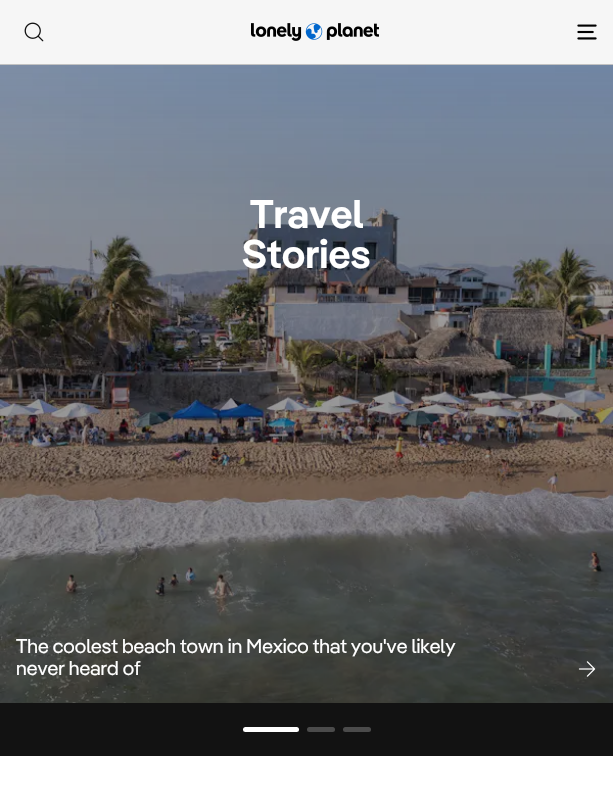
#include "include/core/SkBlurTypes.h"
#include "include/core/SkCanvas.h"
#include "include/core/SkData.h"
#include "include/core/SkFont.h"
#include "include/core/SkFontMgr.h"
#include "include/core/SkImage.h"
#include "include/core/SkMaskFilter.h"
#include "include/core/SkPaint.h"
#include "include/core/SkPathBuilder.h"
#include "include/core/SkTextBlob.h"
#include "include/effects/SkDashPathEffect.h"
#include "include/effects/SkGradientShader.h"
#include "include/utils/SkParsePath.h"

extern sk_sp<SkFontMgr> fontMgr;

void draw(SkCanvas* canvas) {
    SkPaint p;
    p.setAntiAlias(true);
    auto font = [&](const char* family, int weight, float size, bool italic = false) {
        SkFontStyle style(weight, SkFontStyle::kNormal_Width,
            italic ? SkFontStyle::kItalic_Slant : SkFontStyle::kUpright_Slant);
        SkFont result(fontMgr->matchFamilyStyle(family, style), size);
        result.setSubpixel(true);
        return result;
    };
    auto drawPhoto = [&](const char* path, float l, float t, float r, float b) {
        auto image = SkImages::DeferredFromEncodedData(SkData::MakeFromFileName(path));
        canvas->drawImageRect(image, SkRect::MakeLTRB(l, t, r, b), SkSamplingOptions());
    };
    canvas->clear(0xFFFFFFFF);
    p.setColor(0xFFF6F6F6);
    canvas->drawRect(SkRect::MakeLTRB(0, 0, 613, 64), p);
    p.setColor(0xFFC2C2C2);
    canvas->drawRect(SkRect::MakeLTRB(0, 64, 613, 65), p);
    drawPhoto("media/1.png", 24, 22, 44, 42);
    drawPhoto("media/2.png", 251, 23, 379, 41);
    drawPhoto("media/3.png", 577, 24, 597, 40);
    drawPhoto("media/4.png", 0, 65, 613, 703);
    auto font1 = font("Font", 600, 40);
    p.setColor(0xFFFFFFFF);
    canvas->drawString("Travel", 250, 228, font1, p);
    canvas->drawString("Stories", 242, 268, font1, p);
    auto font2 = font("Font", 400, 20);
    canvas->drawString("The coolest beach town in Mexico that you've likely", 16, 653, font2, p);
    canvas->drawString("never heard of", 16, 675, font2, p);
    drawPhoto("media/5.png", 578, 661, 596, 677);
    p.setColor(0xFF121212);
    canvas->drawRect(SkRect::MakeLTRB(0, 703, 613, 756), p);
    p.setColor(0xFFFFFFFF);
    canvas->drawRoundRect(SkRect::MakeLTRB(243, 727, 299, 732), 2.5f, 2.5f, p);
    p.setColor(0xFF4B4B4B);
    canvas->drawRoundRect(SkRect::MakeLTRB(307, 727, 335, 732), 2.5f, 2.5f, p);
    canvas->drawRoundRect(SkRect::MakeLTRB(343, 727, 371, 732), 2.5f, 2.5f, p);
}
